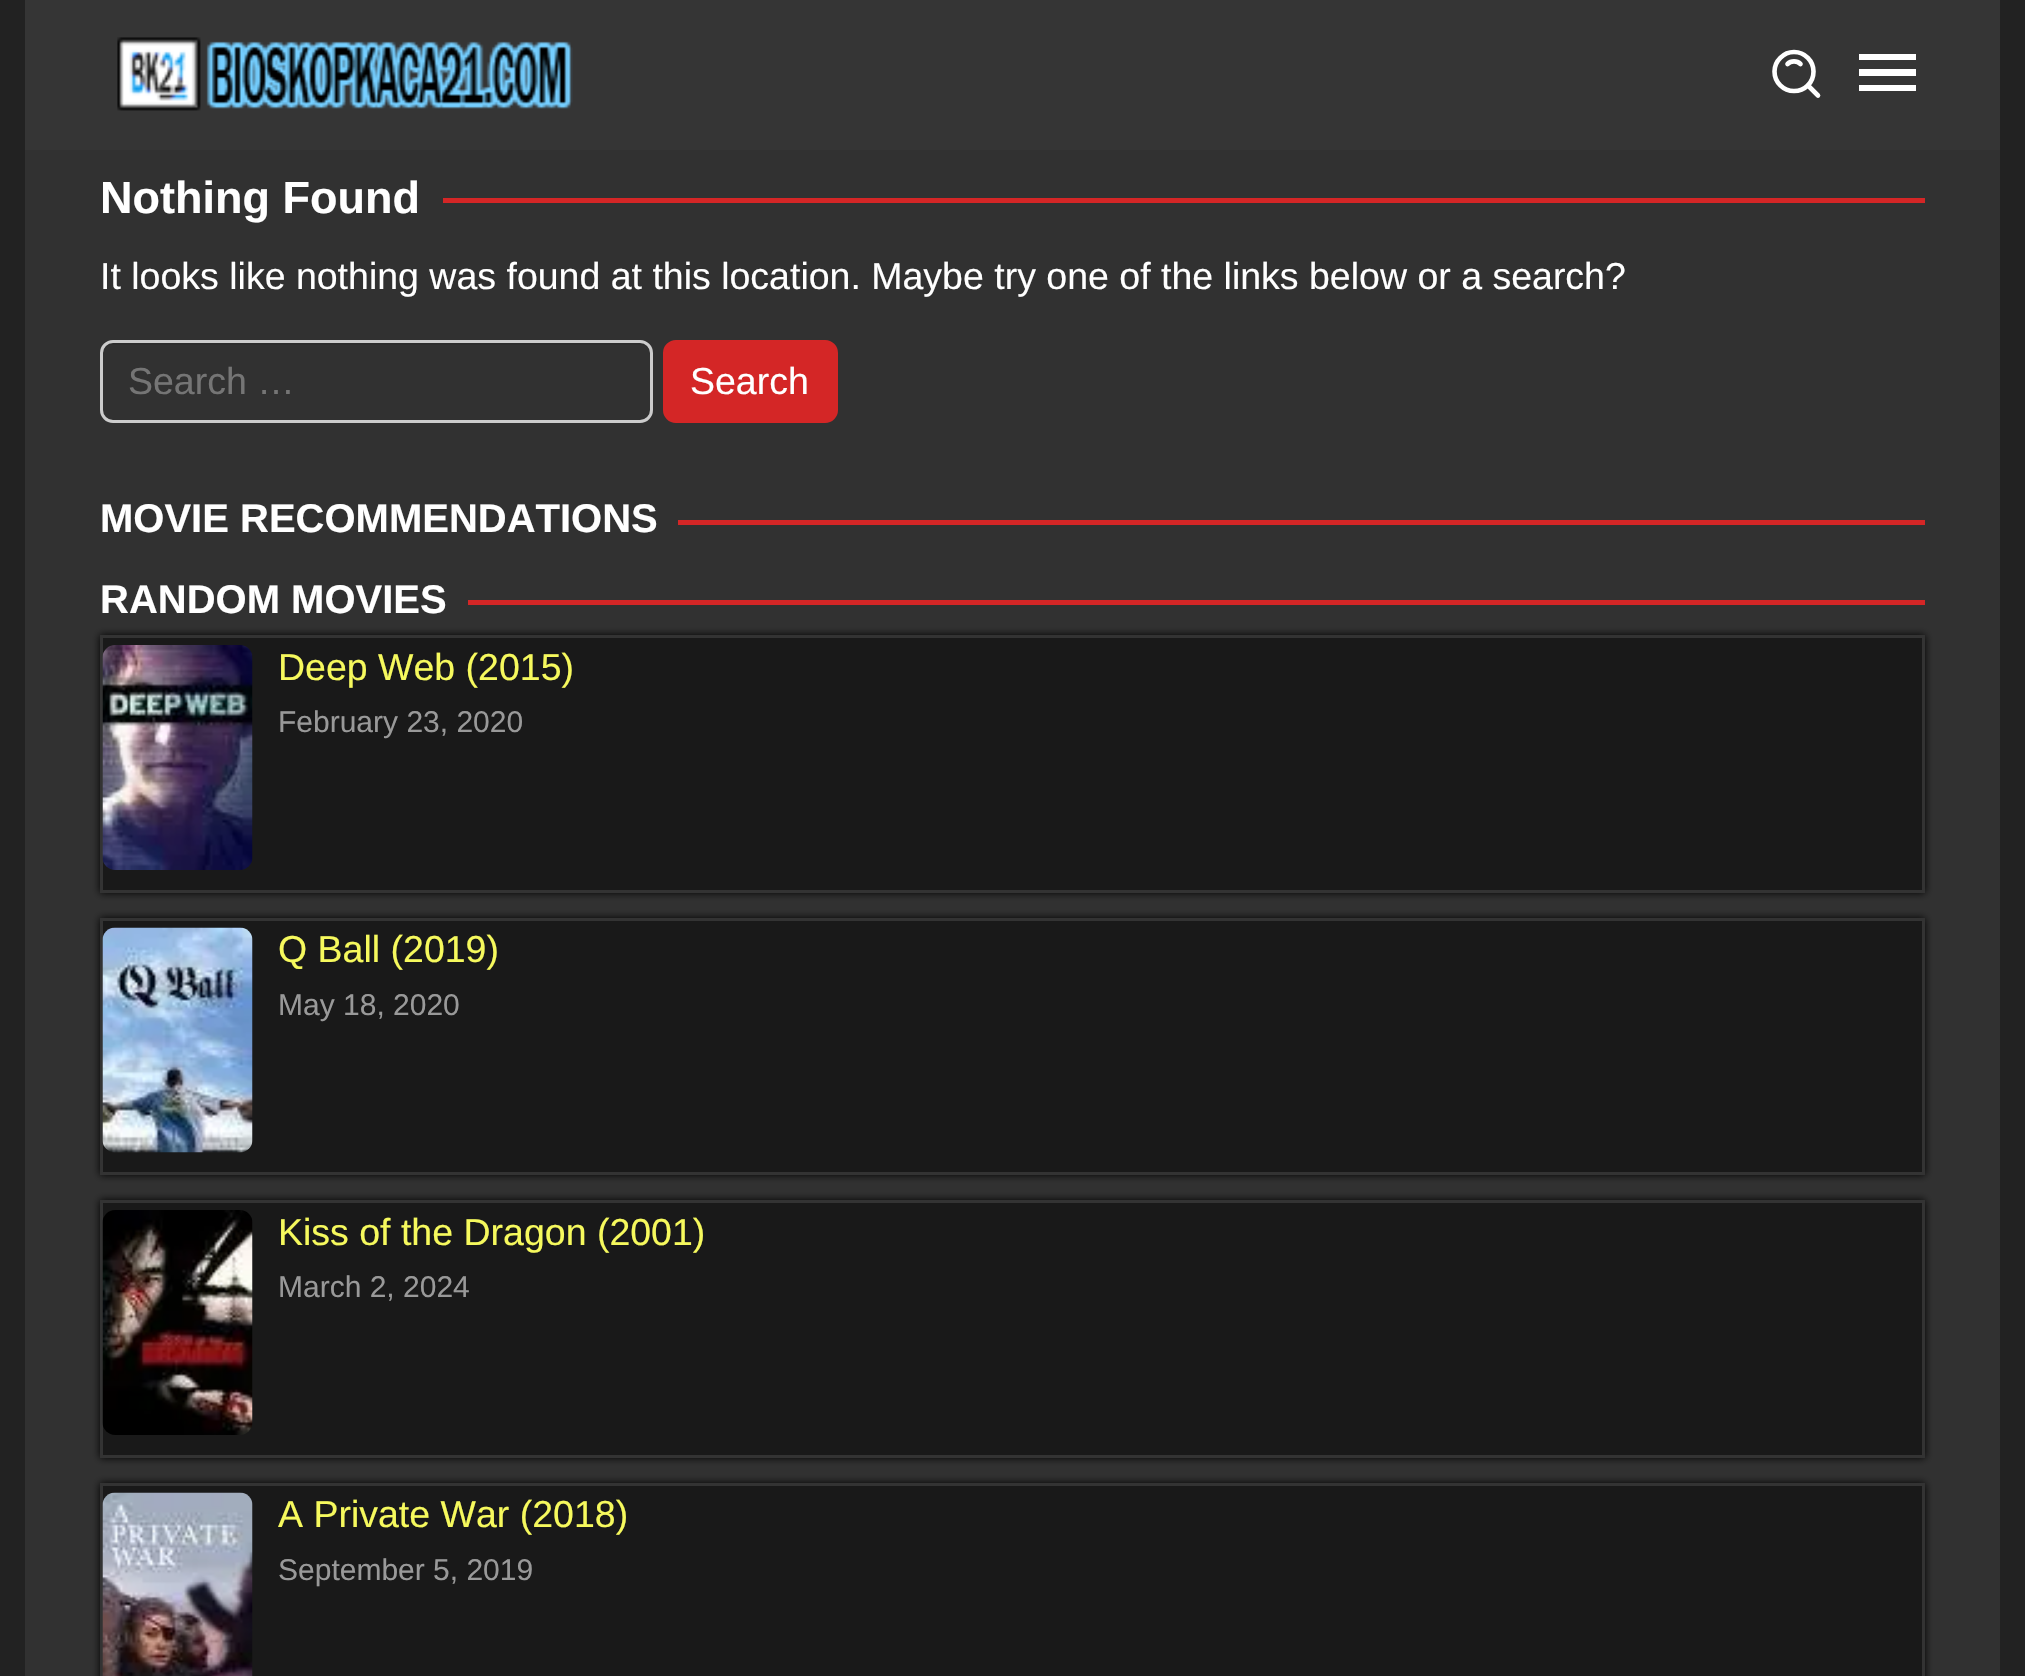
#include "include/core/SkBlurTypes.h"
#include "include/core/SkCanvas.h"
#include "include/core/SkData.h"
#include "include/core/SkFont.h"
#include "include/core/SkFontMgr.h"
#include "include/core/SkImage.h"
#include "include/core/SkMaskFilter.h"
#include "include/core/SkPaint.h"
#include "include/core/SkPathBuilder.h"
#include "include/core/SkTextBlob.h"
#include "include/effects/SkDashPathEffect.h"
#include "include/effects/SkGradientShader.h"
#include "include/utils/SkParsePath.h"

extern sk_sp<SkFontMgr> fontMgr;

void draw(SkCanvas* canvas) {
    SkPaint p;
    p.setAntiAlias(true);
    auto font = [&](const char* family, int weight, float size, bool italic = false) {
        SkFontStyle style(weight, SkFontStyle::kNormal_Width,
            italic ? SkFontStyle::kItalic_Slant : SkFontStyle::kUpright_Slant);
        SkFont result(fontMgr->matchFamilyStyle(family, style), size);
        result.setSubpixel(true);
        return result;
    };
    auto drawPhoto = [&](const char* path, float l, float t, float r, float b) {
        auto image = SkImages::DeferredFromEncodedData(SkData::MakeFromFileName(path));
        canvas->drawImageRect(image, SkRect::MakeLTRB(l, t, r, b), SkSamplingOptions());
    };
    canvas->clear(0xFF222222);
    p.setColor(0xFF353535);
    canvas->drawRect(SkRect::MakeLTRB(25, 0, 2000, 150), p);
    drawPhoto("media/1.png", 117, 37, 573, 111);
    p.setStyle(SkPaint::kStroke_Style);
    p.setStrokeWidth(4.6f);
    p.setStrokeJoin(SkPaint::kRound_Join);
    p.setColor(0xFFFFFFFF);
    canvas->drawPath(SkPathBuilder().moveTo(1794, 91).cubicTo(1805, 91, 1813.5f, 82.5f, 1813.5f, 71.5f).cubicTo(1813.5f, 61, 1805, 52, 1794, 52).cubicTo(1783.5f, 52, 1774.5f, 61, 1774.5f, 71.5f).cubicTo(1774.5f, 82.5f, 1783.5f, 91, 1794, 91).close().detach(), p);
    p.setStrokeCap(SkPaint::kRound_Cap);
    canvas->drawPath(SkPathBuilder().moveTo(1800.5f, 64).cubicTo(1797, 60.5f, 1791, 60.5f, 1787.5f, 64).moveTo(1808, 85.5f).lineTo(1818, 95.5f).detach(), p);
    p.setStyle(SkPaint::kFill_Style);
    canvas->drawPath(SkPathBuilder().moveTo(1916, 54).lineTo(1916, 60).lineTo(1859, 60).lineTo(1859, 54).close().moveTo(1859, 91).lineTo(1916, 91).lineTo(1916, 85).lineTo(1859, 85).close().moveTo(1859, 76).lineTo(1916, 76).lineTo(1916, 69).lineTo(1859, 69).close().detach(), p);
    p.setColor(0xFF313131);
    canvas->drawRect(SkRect::MakeLTRB(25, 150, 2000, 1676), p);
    auto font1 = font("Liberation Sans", 700, 45);
    p.setColor(0xFFFFFFFF);
    canvas->drawString("Nothing Found", 100, 213, font1, p);
    p.setColor(0xFFD42626);
    canvas->drawRect(SkRect::MakeLTRB(443, 198, 1925, 203), p);
    auto font2 = font("Liberation Sans", 400, 37.5f);
    p.setColor(0xFFFFFFFF);
    canvas->drawString("It looks like nothing was found at this location. Maybe try one of the links below or a search?", 100, 289, font2, p);
    p.setColor(0xFF2D2D2D);
    canvas->drawPath(SkPathBuilder().moveTo(112, 345).lineTo(640, 345).cubicTo(646, 345, 650, 349, 650, 355).lineTo(650, 353).cubicTo(650, 347, 646, 343, 640, 343).lineTo(113, 343).cubicTo(109, 343, 105, 346, 104, 350).cubicTo(105, 347, 109, 345, 112, 345).close().detach(), p);
    p.setStyle(SkPaint::kStroke_Style);
    p.setStrokeWidth(3);
    p.setStrokeCap(SkPaint::kButt_Cap);
    p.setStrokeJoin(SkPaint::kMiter_Join);
    p.setColor(0xFFCCCCCC);
    canvas->drawRoundRect(SkRect::MakeLTRB(101.5f, 341.5f, 651.5f, 421.5f), 11.5f, 11.5f, p);
    p.setStyle(SkPaint::kFill_Style);
    p.setColor(0xFF757575);
    canvas->drawString("Search …", 128, 394, font2, p);
    p.setColor(0xFFD42626);
    canvas->drawRoundRect(SkRect::MakeLTRB(664.5f, 341.5f, 836.5f, 421.5f), 11.5f, 11.5f, p);
    p.setStyle(SkPaint::kStroke_Style);
    canvas->drawRoundRect(SkRect::MakeLTRB(664.5f, 341.5f, 836.5f, 421.5f), 11.5f, 11.5f, p);
    p.setStyle(SkPaint::kFill_Style);
    p.setColor(0xFFFFFFFF);
    canvas->drawString("Search", 690, 394, font2, p);
    auto font3 = font("Liberation Sans", 700, 40);
    canvas->drawString("MOVIE RECOMMENDATIONS", 100, 532, font3, p);
    p.setColor(0xFFD42626);
    canvas->drawRect(SkRect::MakeLTRB(678, 520, 1925, 525), p);
    p.setColor(0xFFFFFFFF);
    canvas->drawString("RANDOM MOVIES", 100, 613, font3, p);
    p.setColor(0xFFD42626);
    canvas->drawRect(SkRect::MakeLTRB(468, 600, 1925, 605), p);
    p.setColor(0xFF000000);
    p.setMaskFilter(SkMaskFilter::MakeBlur(kNormal_SkBlurStyle, 4));
    canvas->drawRect(SkRect::MakeLTRB(100, 635, 1925, 893), p);
    p.setMaskFilter(nullptr);
    p.setColor(0xFF191919);
    canvas->drawRect(SkRect::MakeLTRB(101.5f, 636.5f, 1923.5f, 891.5f), p);
    p.setStyle(SkPaint::kStroke_Style);
    p.setColor(0xFF333333);
    canvas->drawRect(SkRect::MakeLTRB(101.5f, 636.5f, 1923.5f, 891.5f), p);
    drawPhoto("media/2.png", 102, 645, 253, 870);
    p.setStyle(SkPaint::kFill_Style);
    p.setColor(0xFFF6F95D);
    canvas->drawString("Deep Web (2015)", 278, 680, font2, p);
    auto font4 = font("Liberation Sans", 400, 30);
    p.setColor(0xFF999999);
    canvas->drawString("February 23, 2020", 278, 732, font4, p);
    p.setColor(0xFF000000);
    p.setMaskFilter(SkMaskFilter::MakeBlur(kNormal_SkBlurStyle, 4));
    canvas->drawRect(SkRect::MakeLTRB(100, 918, 1925, 1175), p);
    p.setMaskFilter(nullptr);
    p.setColor(0xFF191919);
    canvas->drawRect(SkRect::MakeLTRB(101.5f, 919.5f, 1923.5f, 1173.5f), p);
    p.setStyle(SkPaint::kStroke_Style);
    p.setColor(0xFF333333);
    canvas->drawRect(SkRect::MakeLTRB(101.5f, 919.5f, 1923.5f, 1173.5f), p);
    drawPhoto("media/3.png", 102, 927, 253, 1153);
    p.setStyle(SkPaint::kFill_Style);
    p.setColor(0xFFF6F95D);
    canvas->drawString("Q Ball (2019)", 278, 962, font2, p);
    p.setColor(0xFF999999);
    canvas->drawString("May 18, 2020", 278, 1015, font4, p);
    p.setColor(0xFF000000);
    p.setMaskFilter(SkMaskFilter::MakeBlur(kNormal_SkBlurStyle, 4));
    canvas->drawRect(SkRect::MakeLTRB(100, 1200, 1925, 1458), p);
    p.setMaskFilter(nullptr);
    p.setColor(0xFF191919);
    canvas->drawRect(SkRect::MakeLTRB(101.5f, 1201.5f, 1923.5f, 1456.5f), p);
    p.setStyle(SkPaint::kStroke_Style);
    p.setColor(0xFF333333);
    canvas->drawRect(SkRect::MakeLTRB(101.5f, 1201.5f, 1923.5f, 1456.5f), p);
    drawPhoto("media/4.png", 102, 1210, 253, 1435);
    p.setStyle(SkPaint::kFill_Style);
    p.setColor(0xFFF6F95D);
    canvas->drawString("Kiss of the Dragon (2001)", 278, 1245, font2, p);
    p.setColor(0xFF999999);
    canvas->drawString("March 2, 2024", 278, 1297, font4, p);
    p.setColor(0xFF000000);
    p.setMaskFilter(SkMaskFilter::MakeBlur(kNormal_SkBlurStyle, 4));
    canvas->drawRect(SkRect::MakeLTRB(100, 1483, 1925, 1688), p);
    p.setMaskFilter(nullptr);
    p.setColor(0xFF191919);
    canvas->drawRect(SkRect::MakeLTRB(101.5f, 1484.5f, 1923.5f, 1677.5f), p);
    p.setStyle(SkPaint::kStroke_Style);
    p.setColor(0xFF333333);
    canvas->drawRect(SkRect::MakeLTRB(101.5f, 1484.5f, 1923.5f, 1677.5f), p);
    drawPhoto("media/5.png", 102, 1492, 253, 1676);
    p.setStyle(SkPaint::kFill_Style);
    p.setColor(0xFFF6F95D);
    canvas->drawString("A Private War (2018)", 278, 1527, font2, p);
    p.setColor(0xFF999999);
    canvas->drawString("September 5, 2019", 278, 1580, font4, p);
}
